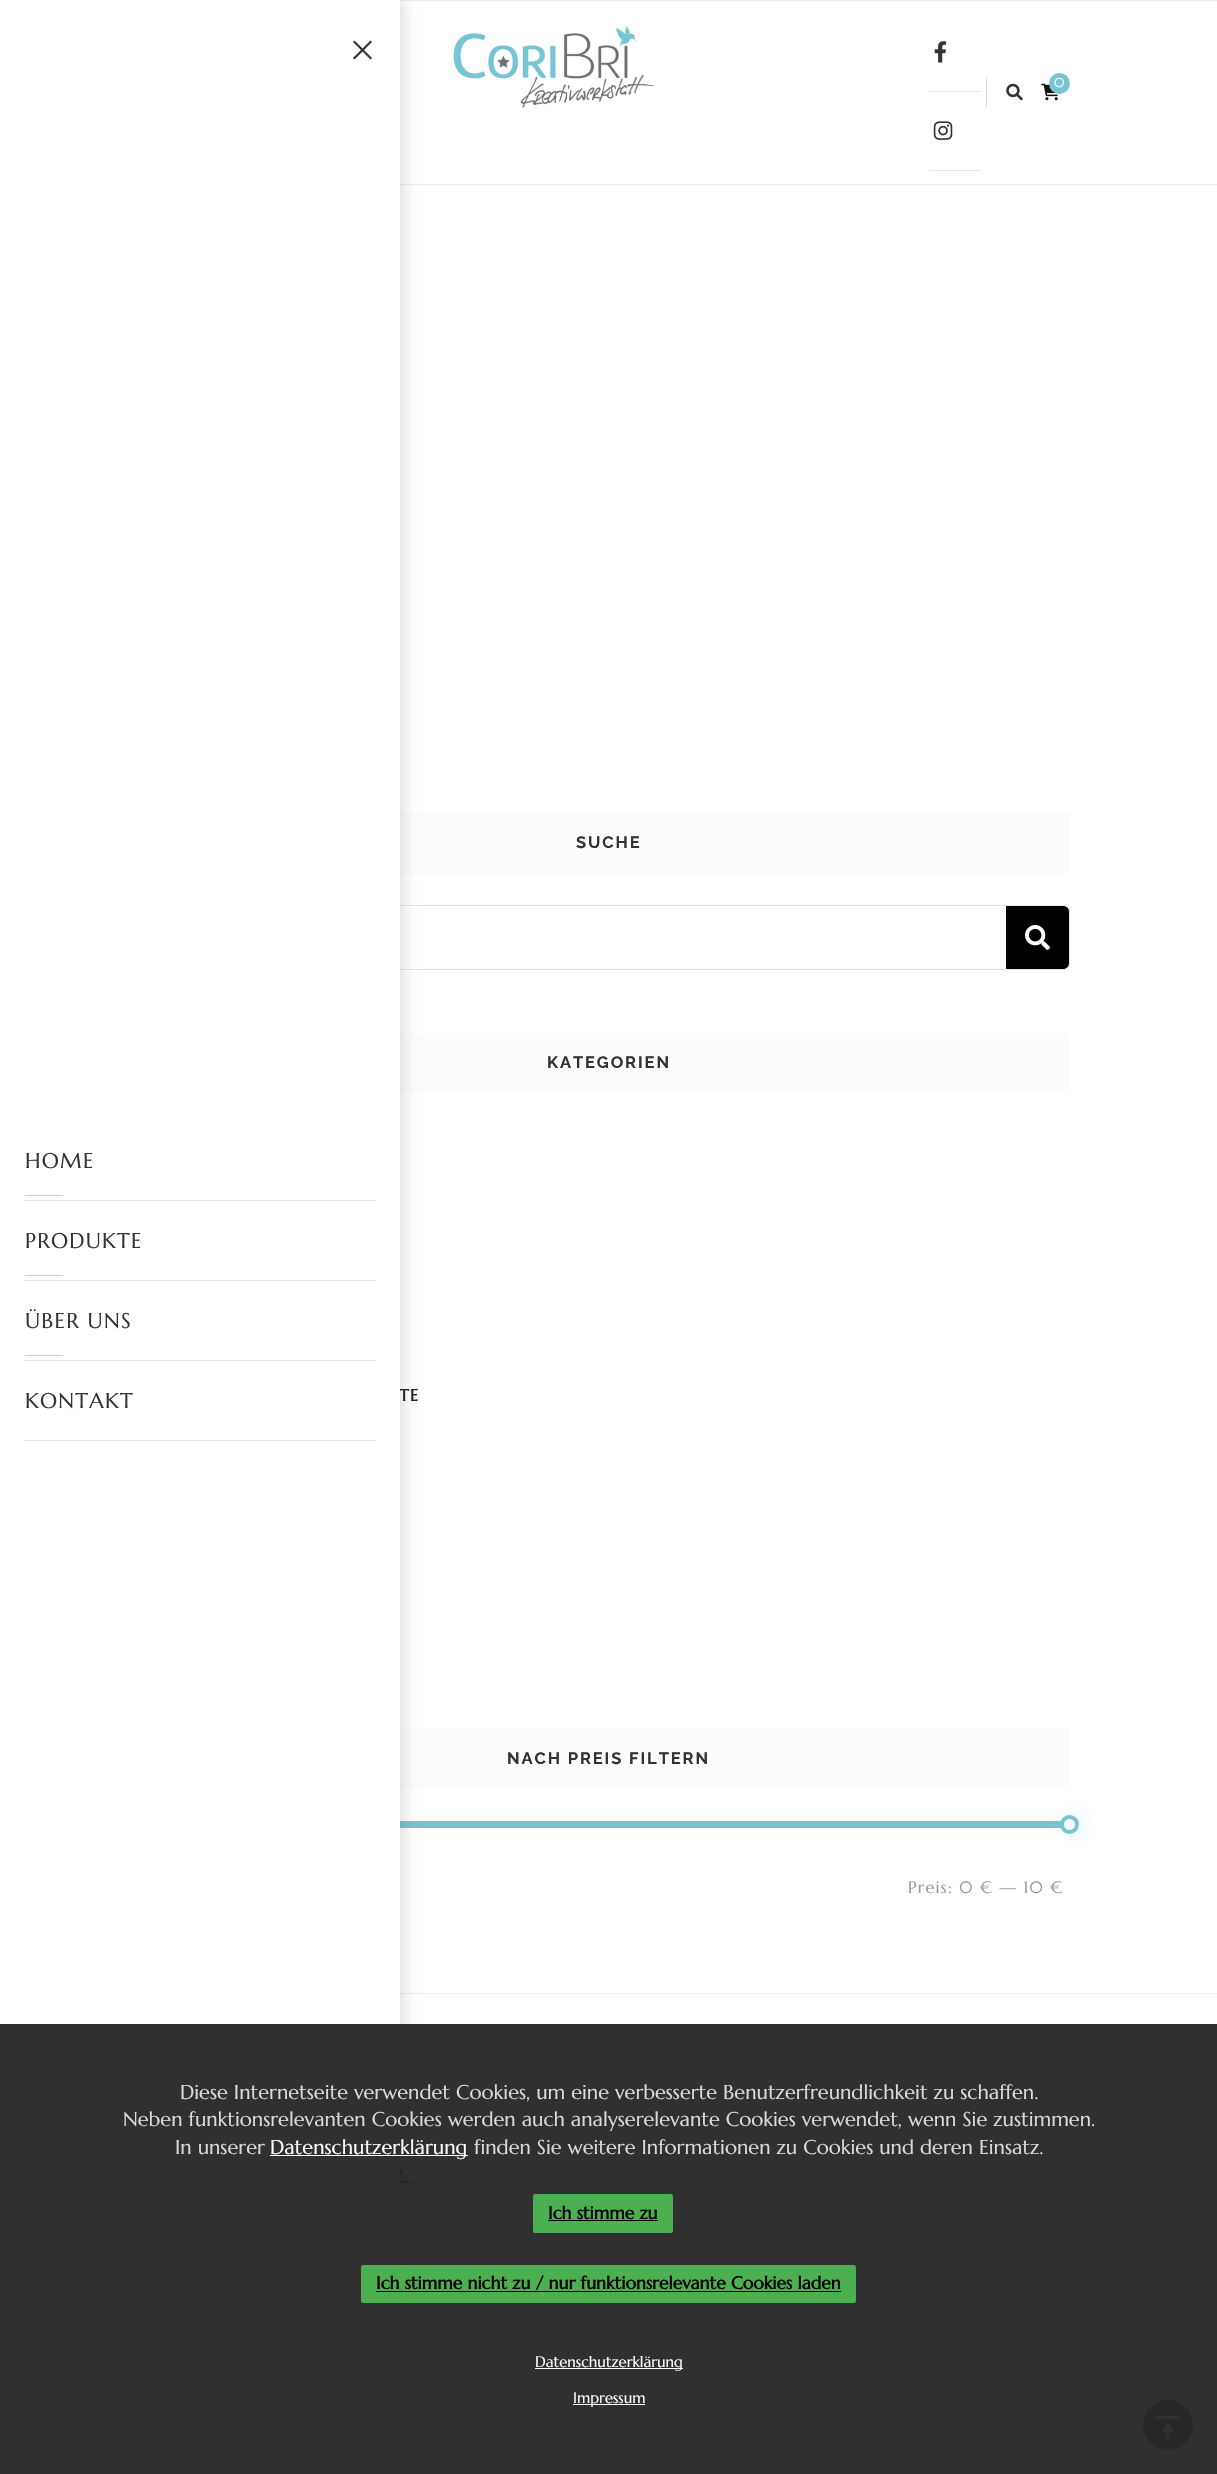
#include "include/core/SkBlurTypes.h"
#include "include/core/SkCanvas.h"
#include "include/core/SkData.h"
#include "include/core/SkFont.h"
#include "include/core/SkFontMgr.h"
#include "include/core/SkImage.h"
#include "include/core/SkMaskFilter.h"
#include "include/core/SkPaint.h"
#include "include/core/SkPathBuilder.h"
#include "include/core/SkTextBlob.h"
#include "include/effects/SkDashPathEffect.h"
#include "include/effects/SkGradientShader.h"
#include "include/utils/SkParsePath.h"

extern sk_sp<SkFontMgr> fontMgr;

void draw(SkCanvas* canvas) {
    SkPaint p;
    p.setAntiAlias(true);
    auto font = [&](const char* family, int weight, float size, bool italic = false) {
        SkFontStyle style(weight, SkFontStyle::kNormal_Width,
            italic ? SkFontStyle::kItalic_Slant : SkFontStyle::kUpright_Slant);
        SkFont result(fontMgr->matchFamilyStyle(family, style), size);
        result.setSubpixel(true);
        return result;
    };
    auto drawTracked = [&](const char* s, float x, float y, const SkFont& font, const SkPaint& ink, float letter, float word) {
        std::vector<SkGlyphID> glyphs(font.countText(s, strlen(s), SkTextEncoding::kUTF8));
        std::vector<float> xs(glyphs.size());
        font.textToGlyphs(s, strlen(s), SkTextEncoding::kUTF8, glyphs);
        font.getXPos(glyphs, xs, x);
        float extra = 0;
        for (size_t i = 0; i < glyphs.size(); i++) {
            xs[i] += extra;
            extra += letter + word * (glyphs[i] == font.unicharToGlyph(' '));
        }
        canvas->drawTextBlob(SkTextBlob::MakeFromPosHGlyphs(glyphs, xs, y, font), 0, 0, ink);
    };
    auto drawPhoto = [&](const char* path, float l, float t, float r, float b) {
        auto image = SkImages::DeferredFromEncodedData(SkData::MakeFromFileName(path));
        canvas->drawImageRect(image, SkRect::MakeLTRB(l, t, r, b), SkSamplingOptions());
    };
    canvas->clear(0xFFFFFFFF);
    p.setColor(0xFFEDEDED);
    canvas->drawRect(SkRect::MakeLTRB(400, 0, 1217, 1), p);
    canvas->drawRect(SkRect::MakeLTRB(400, 184, 1217, 185), p);
    drawPhoto("media/1.png", 453, 26, 654, 108);
    p.setColor(0xFFE6E6E6);
    canvas->drawRect(SkRect::MakeLTRB(929, 91, 980, 92), p);
    drawPhoto("media/2.png", 934, 41, 947, 63);
    canvas->drawRect(SkRect::MakeLTRB(929, 170, 980, 171), p);
    drawPhoto("media/3.png", 933, 121, 953, 140);
    p.setColor(0xFFD9D9D9);
    canvas->drawRect(SkRect::MakeLTRB(986, 78, 987, 108), p);
    drawPhoto("media/4.png", 1006, 83, 1023, 101);
    drawPhoto("media/5.png", 1041, 83, 1058, 101);
    p.setColor(0xFF77C4D3);
    canvas->drawCircle(1059.5f, 83.5f, 10.5f, p);
    auto font1 = font("Marcellus", 400, 13);
    p.setColor(0xFFFFFFFF);
    canvas->drawString("0", 1054, 87, font1, p);
    p.setColor(0xFFFCFCFC);
    canvas->drawRect(SkRect::MakeLTRB(400, 811, 1070, 874), p);
    p.setStyle(SkPaint::kStroke_Style);
    p.setStrokeWidth(1);
    p.setColor(0xFFE5E5E5);
    canvas->drawRoundRect(SkRect::MakeLTRB(148.5f, 905.5f, 1069.5f, 969.5f), 5.5f, 5.5f, p);
    p.setStyle(SkPaint::kFill_Style);
    {
        const struct { float l, t, r, b; SkColor color; } items[] = {
            {400, 1033, 1070, 1094, 0xFFFCFCFC},
            {400, 1728, 1070, 1790, 0xFFFCFCFC},
            {400, 1821, 1061, 1828, 0xFF77C4D3},
            {400, 1993, 1217, 1994, 0xFFEEEEEE},
        };
        for (auto [l, t, r, b, color] : items) {
            p.setColor(color);
            canvas->drawRect(SkRect::MakeLTRB(l, t, r, b), p);
        }
    }
    drawPhoto("media/7.png", 400, 2168, 417, 2185);
    p.setColor(0x1A000000);
    p.setMaskFilter(SkMaskFilter::MakeBlur(kNormal_SkBlurStyle, 6));
    canvas->drawRect(SkRect::MakeLTRB(6, 0, 406, 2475), p);
    p.setMaskFilter(nullptr);
    auto font2 = font("Marcellus", 700, 16.5f);
    p.setColor(0xFF262525);
    drawTracked("TE", 399, 1401, font2, p, 1.25f, 0);
    p.setColor(0xFFFFFFFF);
    canvas->drawRect(SkRect::MakeLTRB(0, 0, 400, 2474), p);
    p.setColor(0xFF333333);
    canvas->drawPath(SkPathBuilder().moveTo(354.5f, 40.5f).lineTo(372, 58).lineTo(370.5f, 59.5f).lineTo(353, 42).close().detach(), p);
    canvas->drawPath(SkPathBuilder().moveTo(353, 58).lineTo(370.5f, 40.5f).lineTo(372, 42).lineTo(354.5f, 59.5f).close().detach(), p);
    p.setColor(0xFFE6E6E6);
    canvas->drawRect(SkRect::MakeLTRB(25, 1200, 375, 1201), p);
    auto font3 = font("Marcellus", 400, 21.25f);
    p.setColor(0xFF333333);
    drawTracked("HOME", 25, 1168, font3, p, 1.25f, 0);
    p.setColor(0xFFCCCCCC);
    canvas->drawRect(SkRect::MakeLTRB(25, 1195, 63, 1196), p);
    p.setColor(0xFFE6E6E6);
    canvas->drawRect(SkRect::MakeLTRB(25, 1280, 375, 1281), p);
    p.setColor(0xFF333333);
    drawTracked("PRODUKTE", 25, 1248, font3, p, 1.25f, 0);
    p.setColor(0xFFCCCCCC);
    canvas->drawRect(SkRect::MakeLTRB(25, 1275, 63, 1276), p);
    p.setColor(0xFFE6E6E6);
    canvas->drawRect(SkRect::MakeLTRB(25, 1360, 375, 1361), p);
    p.setColor(0xFF333333);
    drawTracked("ÜBER UNS", 25, 1328, font3, p, 1.25f, 0);
    p.setColor(0xFFCCCCCC);
    canvas->drawRect(SkRect::MakeLTRB(25, 1355, 63, 1356), p);
    p.setColor(0xFFE6E6E6);
    canvas->drawRect(SkRect::MakeLTRB(25, 1440, 375, 1441), p);
    p.setColor(0xFF333333);
    drawTracked("KONTAKT", 25, 1408, font3, p, 1.25f, 0);
    auto font4 = font("Raleway", 700, 16.5f);
    drawTracked("SUCHE", 576, 848, font4, p, 1.9f, 0);
    p.setColor(0xFF000000);
    canvas->drawPath(SkPathBuilder().moveTo(1006, 906).lineTo(1063, 906).cubicTo(1066.5f, 906, 1069, 908.5f, 1069, 912).lineTo(1069, 963).cubicTo(1069, 966.5f, 1066.5f, 969, 1063, 969).lineTo(1006, 969).close().detach(), p);
    drawPhoto("media/6.png", 1025, 925, 1050, 950);
    p.setColor(0xFF333333);
    drawTracked("KATEGORIEN", 547, 1068, font4, p, 1.9f, 0);
    drawTracked("NACH PREIS FILTERN", 507, 1764, font4, p, 1.9f, 0);
    p.setColor(0x4D88CED0);
    p.setMaskFilter(SkMaskFilter::MakeBlur(kNormal_SkBlurStyle, 9.5f));
    canvas->drawRoundRect(SkRect::MakeLTRB(1066, 1815, 1085, 1834), 9.5f, 9.5f, p);
    p.setMaskFilter(nullptr);
    p.setColor(0xFFFFFFFF);
    canvas->drawCircle(1069.5f, 1824.5f, 7.5f, p);
    p.setStyle(SkPaint::kStroke_Style);
    p.setStrokeWidth(4);
    p.setColor(0xFF77C4D3);
    canvas->drawCircle(1069.5f, 1824.5f, 7.5f, p);
    auto font5 = font("Marcellus", 400, 16.5f);
    p.setStyle(SkPaint::kFill_Style);
    p.setColor(0xFF999999);
    drawTracked("Preis: 0 € — 10 €", 908, 1893, font5, p, 1.25f, 0);
    p.setStyle(SkPaint::kStroke_Style);
    p.setStrokeWidth(1.2f);
    p.setColor(0xFFCCCCCC);
    p.setPathEffect(SkDashPathEffect::Make({{3.75f, 2.45f}}, 0));
    canvas->drawPath(SkPathBuilder().moveTo(467.5f, 2193).lineTo(750, 2193).detach(), p);
    p.setPathEffect(nullptr);
    p.setPathEffect(SkDashPathEffect::Make({{3.75f, 2.45f}}, 0));
    canvas->drawPath(SkPathBuilder().moveTo(467.5f, 2234.5f).lineTo(750, 2234.5f).detach(), p);
    p.setPathEffect(nullptr);
    p.setPathEffect(SkDashPathEffect::Make({{3.75f, 2.45f}}, 0));
    canvas->drawPath(SkPathBuilder().moveTo(467.5f, 2317).lineTo(750, 2317).detach(), p);
    p.setPathEffect(nullptr);
    p.setStyle(SkPaint::kFill_Style);
    p.setColor(0xFFA1A1A1);
    canvas->drawCircle(1168, 2425, 25, p);
    drawPhoto("media/8.png", 1155, 2416, 1180, 2441);
    p.setColor(0xE6191919);
    canvas->drawRect(SkRect::MakeLTRB(0, 2024, 1217, 2474), p);
    auto font6 = font("Marcellus", 400, 20);
    p.setColor(0xFFDADADA);
    {
        const struct { const char* s; float x, y; } items[] = {
            {"Diese Internetseite verwendet Cookies, um eine verbesserte Benutzerfreundlichkeit zu schaffen.", 180, 2099},
            {"Neben funktionsrelevanten Cookies werden auch analyserelevante Cookies verwendet, wenn Sie zustimmen.", 123, 2126},
            {"In unserer", 175, 2154},
        };
        for (auto [s, x, y] : items) {
            canvas->drawString(s, x, y, font6, p);
        }
    }
    p.setColor(0xFFFFFFFF);
    canvas->drawRect(SkRect::MakeLTRB(270, 2155, 468, 2156), p);
    canvas->drawString("Datenschutzerklärung", 270, 2154, font6, p);
    p.setColor(0xFFDADADA);
    canvas->drawString("finden Sie weitere Informationen zu Cookies und deren Einsatz.", 474, 2154, font6, p);
    p.setColor(0xFF4CAF50);
    canvas->drawRoundRect(SkRect::MakeLTRB(533, 2194, 673, 2233), 2.5f, 2.5f, p);
    auto font7 = font("Marcellus", 700, 17.5f);
    p.setColor(0xFF000000);
    canvas->drawString("Ich stimme zu", 548, 2219, font7, p);
    canvas->drawRect(SkRect::MakeLTRB(548, 2220, 658, 2221), p);
    p.setColor(0xFF4CAF50);
    canvas->drawRoundRect(SkRect::MakeLTRB(361, 2265, 856, 2303), 2.5f, 2.5f, p);
    p.setColor(0xFF000000);
    canvas->drawString("Ich stimme nicht zu / nur funktionsrelevante Cookies laden", 376, 2289, font7, p);
    canvas->drawRect(SkRect::MakeLTRB(376, 2291, 841, 2292), p);
    p.setColor(0xFFFFFFFF);
    canvas->drawRect(SkRect::MakeLTRB(535, 2368, 683, 2369), p);
    auto font8 = font("Marcellus", 400, 15);
    canvas->drawString("Datenschutzerklärung", 535, 2367, font8, p);
    canvas->drawRect(SkRect::MakeLTRB(573, 2404, 645, 2405), p);
    canvas->drawString("Impressum", 573, 2403, font8, p);
}
